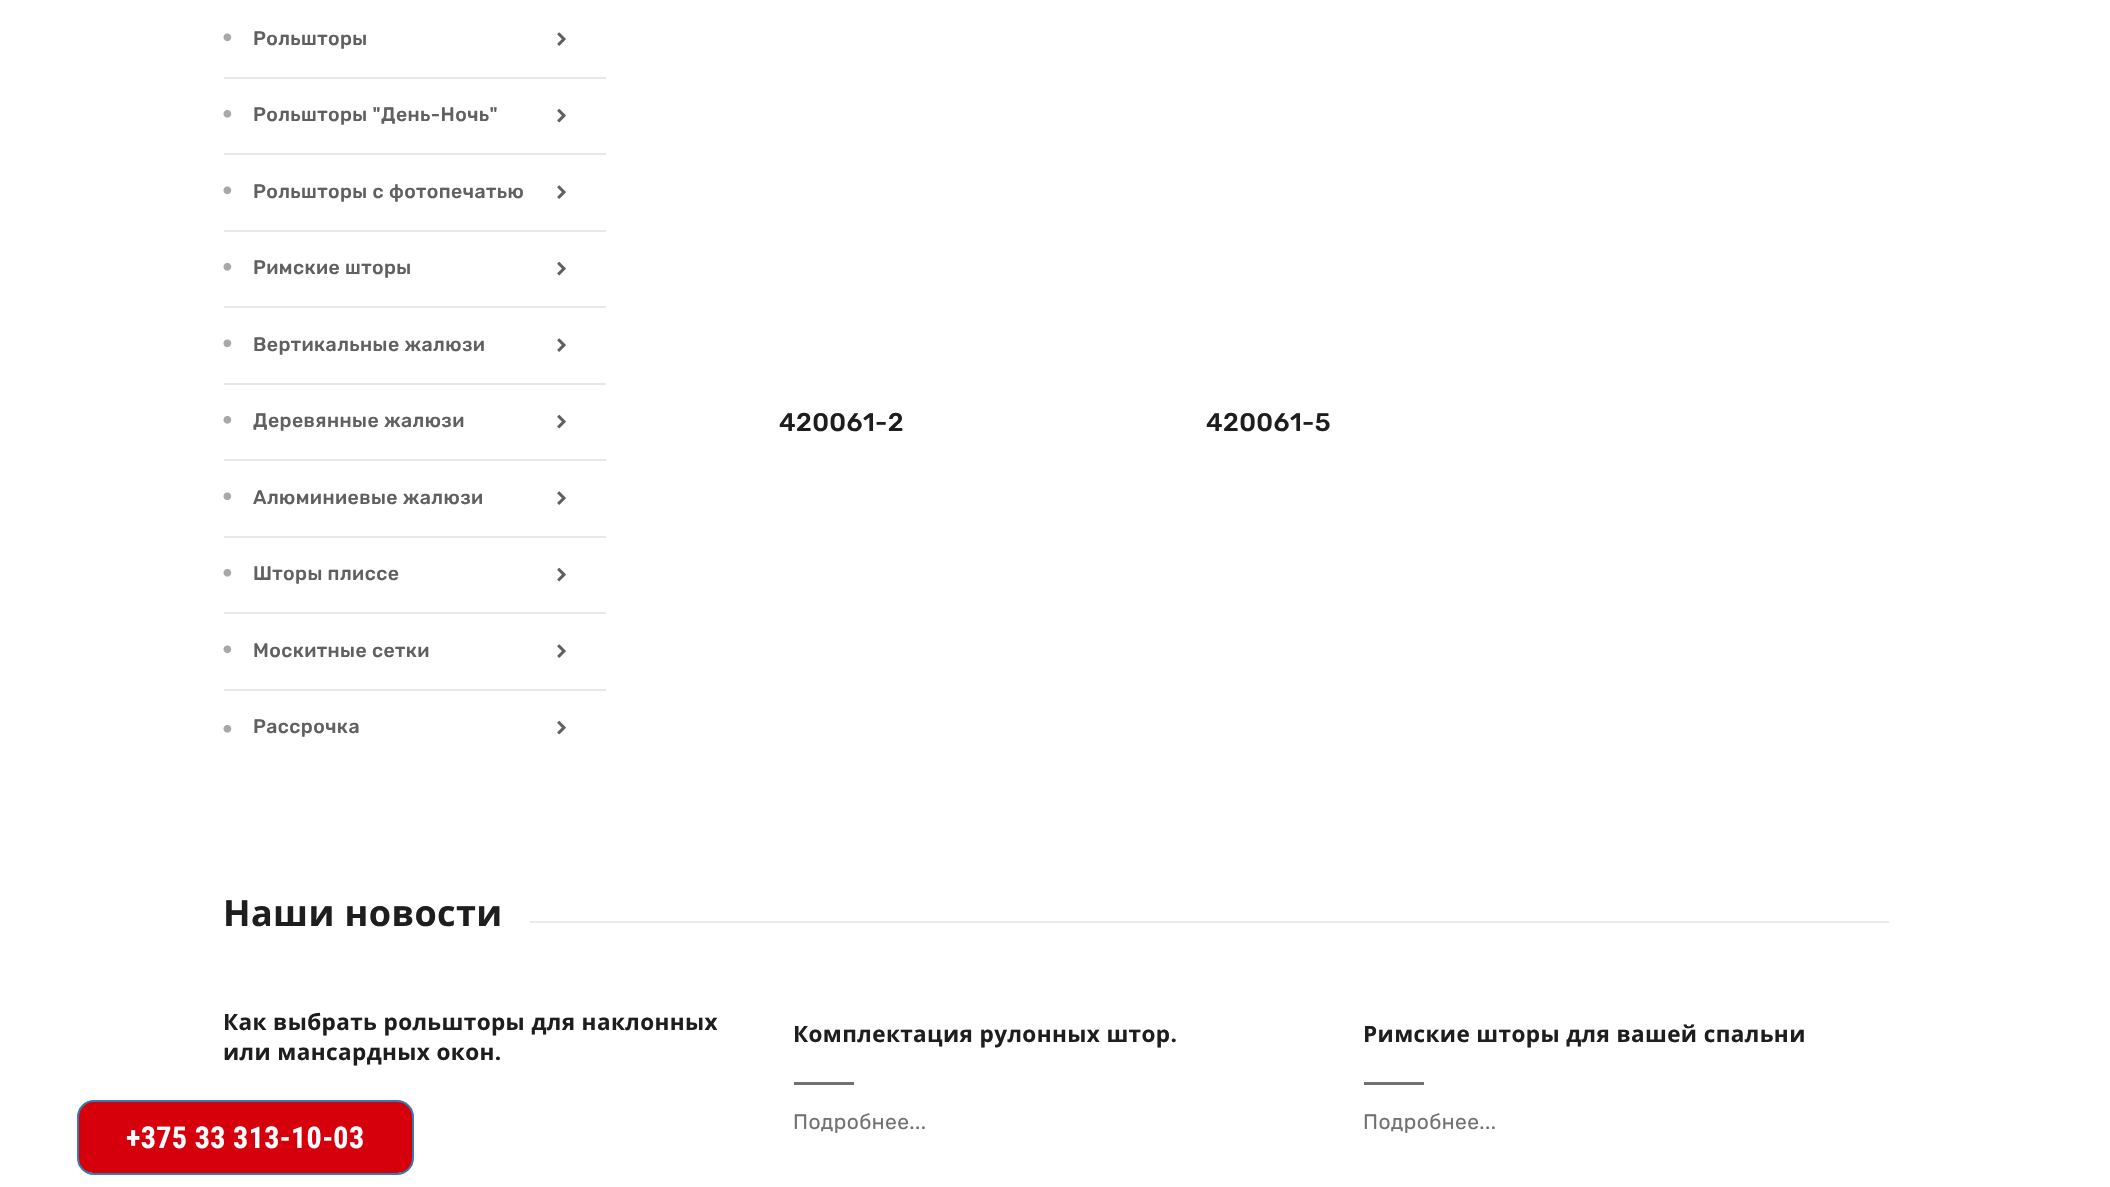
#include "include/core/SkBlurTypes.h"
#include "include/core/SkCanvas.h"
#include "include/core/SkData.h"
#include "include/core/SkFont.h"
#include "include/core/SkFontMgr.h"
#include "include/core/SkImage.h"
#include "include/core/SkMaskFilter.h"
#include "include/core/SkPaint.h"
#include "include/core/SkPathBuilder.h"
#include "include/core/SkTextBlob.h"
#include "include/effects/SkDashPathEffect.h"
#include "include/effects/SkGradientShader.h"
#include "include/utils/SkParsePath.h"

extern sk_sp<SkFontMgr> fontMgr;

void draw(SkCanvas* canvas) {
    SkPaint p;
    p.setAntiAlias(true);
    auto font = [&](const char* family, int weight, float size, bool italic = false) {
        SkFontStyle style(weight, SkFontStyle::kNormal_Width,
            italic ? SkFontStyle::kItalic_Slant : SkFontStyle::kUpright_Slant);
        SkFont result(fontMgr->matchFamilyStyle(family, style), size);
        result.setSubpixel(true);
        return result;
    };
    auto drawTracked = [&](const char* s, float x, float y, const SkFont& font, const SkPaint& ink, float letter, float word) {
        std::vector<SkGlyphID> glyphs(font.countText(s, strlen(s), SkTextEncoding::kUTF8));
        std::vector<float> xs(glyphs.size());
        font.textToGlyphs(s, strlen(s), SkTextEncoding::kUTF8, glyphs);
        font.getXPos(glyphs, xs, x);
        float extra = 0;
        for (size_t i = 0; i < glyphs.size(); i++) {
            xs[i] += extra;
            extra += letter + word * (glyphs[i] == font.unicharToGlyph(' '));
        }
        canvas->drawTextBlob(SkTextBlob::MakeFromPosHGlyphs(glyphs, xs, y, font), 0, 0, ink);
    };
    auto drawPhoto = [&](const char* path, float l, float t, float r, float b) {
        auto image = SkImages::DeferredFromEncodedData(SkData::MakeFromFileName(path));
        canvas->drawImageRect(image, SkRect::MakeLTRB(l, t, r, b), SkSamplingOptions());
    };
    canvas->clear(0xFFFFFFFF);
    drawPhoto("media/1.png", 223, 33, 232, 42);
    p.setColor(0xFFE8E8E8);
    canvas->drawRect(SkRect::MakeLTRB(224, 77, 606, 79), p);
    auto font1 = font("Rubik", 500, 19.5f);
    p.setColor(0xFF606060);
    drawTracked("Рольшторы", 253, 45, font1, p, 0.4f, 0);
    drawPhoto("media/2.png", 557, 32, 566, 46);
    drawPhoto("media/3.png", 223, 110, 232, 118);
    p.setColor(0xFFE8E8E8);
    canvas->drawRect(SkRect::MakeLTRB(224, 153, 606, 155), p);
    p.setColor(0xFF606060);
    drawTracked("Рольшторы \"День-Ночь\"", 253, 121, font1, p, 0.4f, 0);
    drawPhoto("media/4.png", 557, 108, 566, 123);
    drawPhoto("media/1.png", 223, 186, 232, 195);
    p.setColor(0xFFE8E8E8);
    canvas->drawRect(SkRect::MakeLTRB(224, 230, 606, 232), p);
    p.setColor(0xFF606060);
    drawTracked("Рольшторы с фотопечатью", 253, 198, font1, p, 0.4f, 0);
    drawPhoto("media/2.png", 557, 185, 566, 199);
    drawPhoto("media/3.png", 223, 263, 232, 271);
    p.setColor(0xFFE8E8E8);
    canvas->drawRect(SkRect::MakeLTRB(224, 306, 606, 308), p);
    p.setColor(0xFF606060);
    drawTracked("Римские шторы", 253, 274, font1, p, 0.4f, 0);
    drawPhoto("media/4.png", 557, 261, 566, 276);
    drawPhoto("media/1.png", 223, 339, 232, 348);
    p.setColor(0xFFE8E8E8);
    canvas->drawRect(SkRect::MakeLTRB(224, 383, 606, 385), p);
    p.setColor(0xFF606060);
    drawTracked("Вертикальные жалюзи", 253, 351, font1, p, 0.4f, 0);
    drawPhoto("media/2.png", 557, 338, 566, 352);
    drawPhoto("media/3.png", 223, 416, 232, 424);
    p.setColor(0xFFE8E8E8);
    canvas->drawRect(SkRect::MakeLTRB(224, 459, 606, 461), p);
    p.setColor(0xFF606060);
    drawTracked("Деревянные жалюзи", 253, 427, font1, p, 0.4f, 0);
    drawPhoto("media/4.png", 557, 414, 566, 429);
    drawPhoto("media/1.png", 223, 492, 232, 501);
    p.setColor(0xFFE8E8E8);
    canvas->drawRect(SkRect::MakeLTRB(224, 536, 606, 538), p);
    p.setColor(0xFF606060);
    drawTracked("Алюминиевые жалюзи", 253, 504, font1, p, 0.4f, 0);
    drawPhoto("media/2.png", 557, 491, 566, 505);
    drawPhoto("media/3.png", 223, 569, 232, 577);
    p.setColor(0xFFE8E8E8);
    canvas->drawRect(SkRect::MakeLTRB(224, 612, 606, 614), p);
    p.setColor(0xFF606060);
    drawTracked("Шторы плиссе", 253, 580, font1, p, 0.4f, 0);
    drawPhoto("media/4.png", 557, 567, 566, 582);
    drawPhoto("media/1.png", 223, 645, 232, 654);
    p.setColor(0xFFE8E8E8);
    canvas->drawRect(SkRect::MakeLTRB(224, 689, 606, 691), p);
    p.setColor(0xFF606060);
    drawTracked("Москитные сетки", 253, 657, font1, p, 0.4f, 0);
    drawPhoto("media/2.png", 557, 644, 566, 658);
    drawPhoto("media/3.png", 223, 725, 232, 733);
    drawTracked("Рассрочка", 253, 733, font1, p, 0.4f, 0);
    drawPhoto("media/4.png", 557, 720, 566, 735);
    auto font2 = font("Rubik", 500, 25.5f);
    p.setColor(0xFF1E1E1E);
    drawTracked("420061-2", 779, 431, font2, p, 0.4f, 0);
    drawTracked("420061-5", 1206, 431, font2, p, 0.4f, 0);
    auto font3 = font("Open Sans", 700, 36);
    drawTracked("Наши новости", 223, 926, font3, p, 0.4f, 0);
    p.setColor(0xFFEBEBEB);
    canvas->drawRect(SkRect::MakeLTRB(530, 921, 1889, 923), p);
    auto font4 = font("Open Sans", 700, 22.5f);
    p.setColor(0xFF1E1E1E);
    {
        const struct { const char* s; float x, y; } items[] = {
            {"Как выбрать рольшторы для наклонных", 223, 1030},
            {"или мансардных окон.", 223, 1060},
            {"Комплектация рулонных штор.", 793, 1042},
        };
        for (auto [s, x, y] : items) {
            drawTracked(s, x, y, font4, p, 0.4f, 0);
        }
    }
    p.setColor(0xFF727272);
    canvas->drawRect(SkRect::MakeLTRB(794, 1082, 854, 1085), p);
    auto font5 = font("Rubik", 400, 21);
    drawTracked("Подробнее...", 793, 1129, font5, p, 0.4f, 0);
    p.setColor(0xFF1E1E1E);
    drawTracked("Римские шторы для вашей спальни", 1363, 1042, font4, p, 0.4f, 0);
    p.setColor(0xFF727272);
    canvas->drawRect(SkRect::MakeLTRB(1364, 1082, 1424, 1085), p);
    drawTracked("Подробнее...", 1363, 1129, font5, p, 0.4f, 0);
    p.setColor(0xFFD6000C);
    canvas->drawRoundRect(SkRect::MakeLTRB(79.5f, 1102.5f, 411.5f, 1171.5f), 13.5f, 13.5f, p);
    p.setStyle(SkPaint::kStroke_Style);
    p.setStrokeWidth(3);
    p.setColor(0xFFD60000);
    canvas->drawRoundRect(SkRect::MakeLTRB(79.5f, 1102.5f, 411.5f, 1171.5f), 13.5f, 13.5f, p);
    p.setStrokeWidth(2);
    p.setColor(0xFF337AB7);
    canvas->drawRoundRect(SkRect::MakeLTRB(78, 1101, 413, 1174), 16, 16, p);
    auto font6 = font("Roboto Condensed", 700, 30);
    p.setStyle(SkPaint::kFill_Style);
    p.setColor(0xFFFFFFFF);
    drawTracked("+375 33 313-10-03", 126, 1148, font6, p, 0.4f, 0);
}
